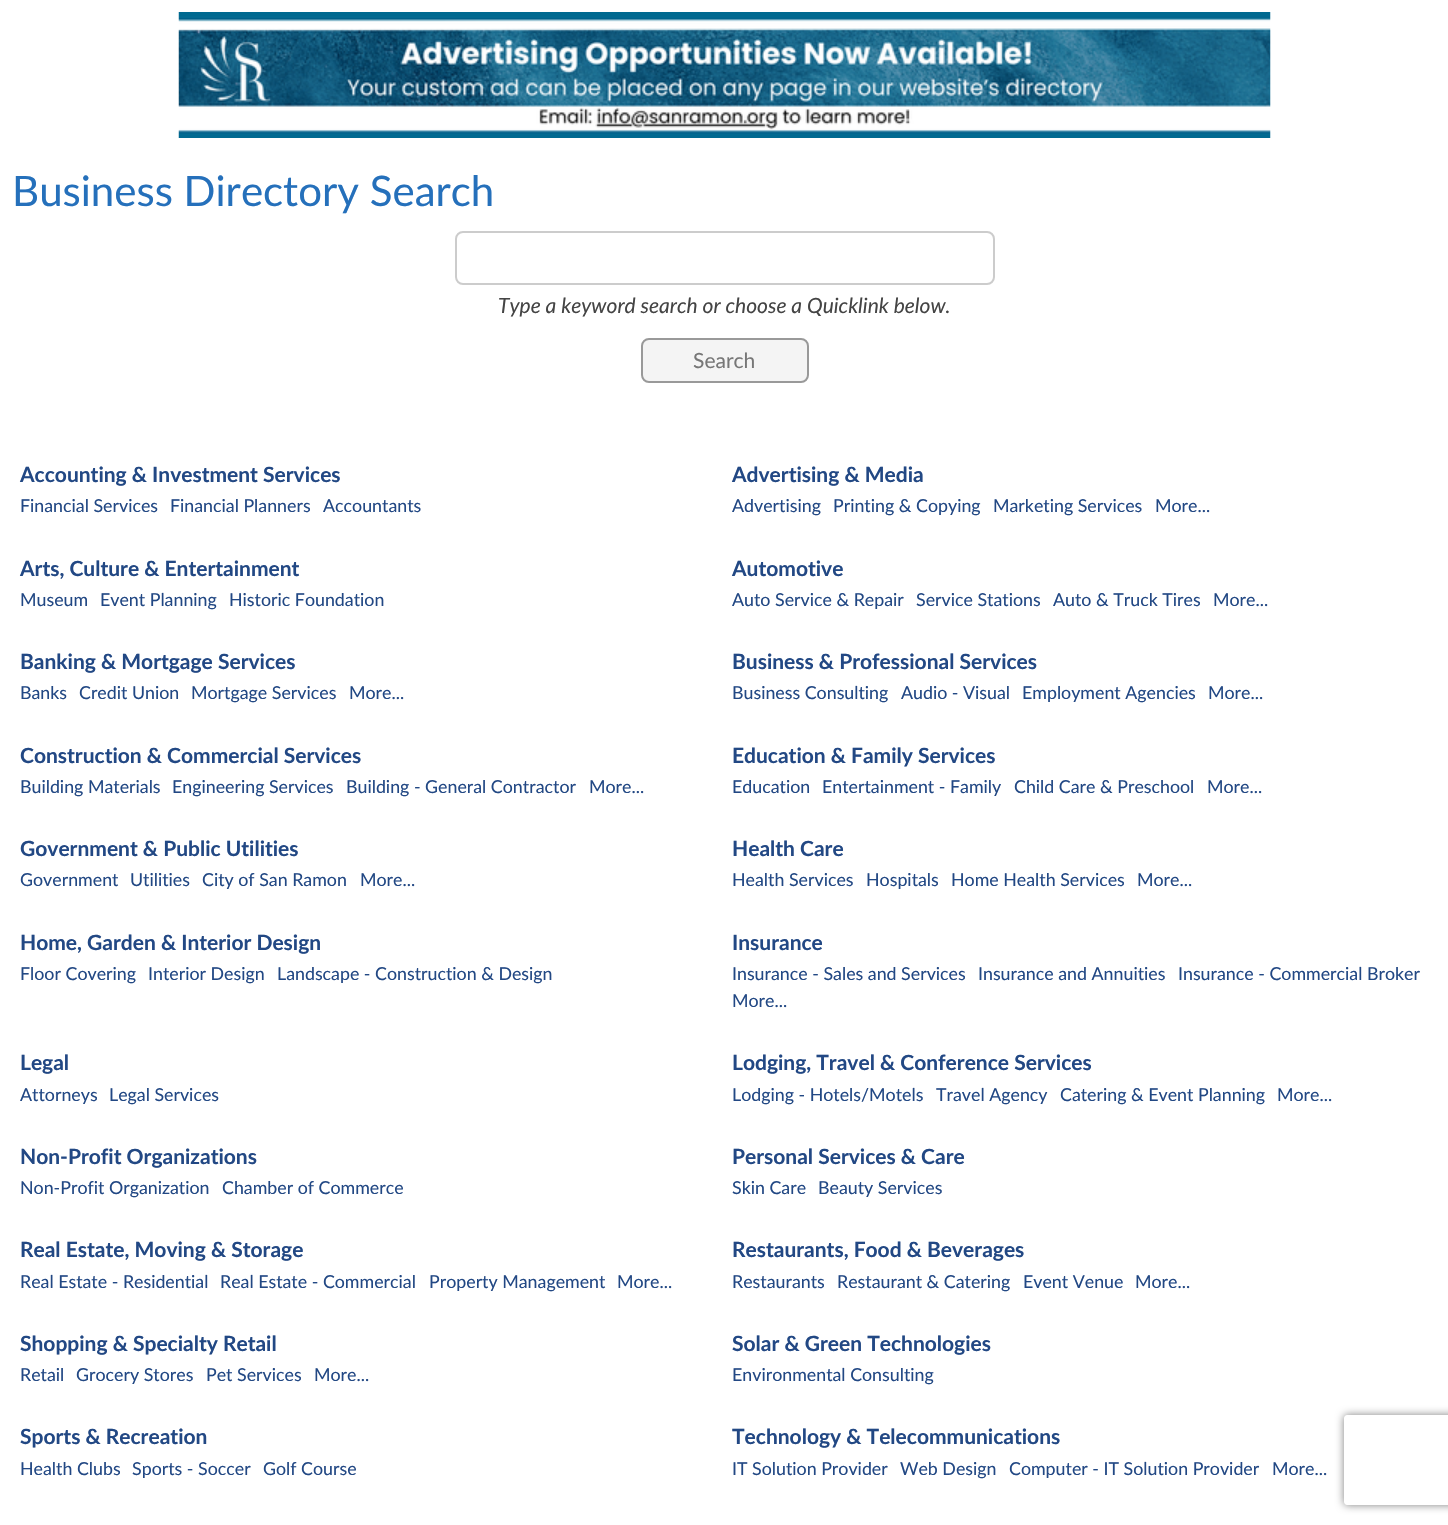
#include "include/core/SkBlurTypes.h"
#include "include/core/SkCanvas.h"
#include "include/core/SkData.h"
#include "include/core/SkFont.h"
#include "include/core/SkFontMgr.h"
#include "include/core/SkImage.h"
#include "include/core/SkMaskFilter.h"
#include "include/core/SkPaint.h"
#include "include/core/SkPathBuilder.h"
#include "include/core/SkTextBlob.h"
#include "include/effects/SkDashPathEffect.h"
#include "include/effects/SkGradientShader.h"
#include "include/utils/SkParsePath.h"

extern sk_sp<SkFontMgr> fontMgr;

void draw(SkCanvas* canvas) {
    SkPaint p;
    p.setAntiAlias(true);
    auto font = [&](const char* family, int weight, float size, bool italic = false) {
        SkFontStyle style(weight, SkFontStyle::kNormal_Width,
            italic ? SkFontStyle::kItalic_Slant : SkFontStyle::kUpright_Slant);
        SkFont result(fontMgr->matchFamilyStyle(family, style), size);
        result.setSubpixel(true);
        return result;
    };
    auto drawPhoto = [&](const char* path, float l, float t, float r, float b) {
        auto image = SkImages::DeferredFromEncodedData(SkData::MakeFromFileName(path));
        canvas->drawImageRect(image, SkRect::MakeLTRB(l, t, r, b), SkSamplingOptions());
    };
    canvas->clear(0xFFFFFFFF);
    drawPhoto("media/1.png", 178, 12, 1271, 138);
    auto font1 = font("Lato", 400, 42);
    p.setColor(0xFF2570BB);
    canvas->drawString("Business Directory Search", 12, 206, font1, p);
    p.setStyle(SkPaint::kStroke_Style);
    p.setStrokeWidth(2);
    p.setColor(0xFFCCCCCC);
    canvas->drawRoundRect(SkRect::MakeLTRB(456, 232, 994, 284), 7, 7, p);
    auto font2 = font("Lato", 400, 21, true);
    p.setStyle(SkPaint::kFill_Style);
    p.setColor(0xFF444444);
    canvas->drawString("Type a keyword search or choose a Quicklink below.", 498, 313, font2, p);
    p.setColor(0xFFF4F4F4);
    canvas->drawRoundRect(SkRect::MakeLTRB(642, 339, 808, 382), 7, 7, p);
    p.setStyle(SkPaint::kStroke_Style);
    p.setColor(0xFF999999);
    canvas->drawRoundRect(SkRect::MakeLTRB(642, 339, 808, 382), 7, 7, p);
    auto font3 = font("Lato", 400, 21);
    p.setStyle(SkPaint::kFill_Style);
    p.setColor(0xFF777777);
    canvas->drawString("Search", 693, 368, font3, p);
    auto font4 = font("Lato", 700, 21);
    p.setColor(0xFF224884);
    canvas->drawString("Accounting & Investment Services", 20, 482, font4, p);
    auto font5 = font("Lato", 400, 17.8f);
    {
        const struct { const char* s; float x, y; } items[] = {
            {"Financial Services", 20, 512},
            {"Financial Planners", 170, 512},
            {"Accountants", 323, 512},
        };
        for (auto [s, x, y] : items) {
            canvas->drawString(s, x, y, font5, p);
        }
    }
    canvas->drawString("Advertising & Media", 732, 482, font4, p);
    {
        const struct { const char* s; float x, y; } items[] = {
            {"Advertising", 732, 512},
            {"Printing & Copying", 833, 512},
            {"Marketing Services", 993, 512},
            {"More...", 1155, 512},
        };
        for (auto [s, x, y] : items) {
            canvas->drawString(s, x, y, font5, p);
        }
    }
    canvas->drawString("Arts, Culture & Entertainment", 20, 576, font4, p);
    {
        const struct { const char* s; float x, y; } items[] = {
            {"Museum", 20, 606},
            {"Event Planning", 100, 606},
            {"Historic Foundation", 229, 606},
        };
        for (auto [s, x, y] : items) {
            canvas->drawString(s, x, y, font5, p);
        }
    }
    canvas->drawString("Automotive", 732, 576, font4, p);
    {
        const struct { const char* s; float x, y; } items[] = {
            {"Auto Service & Repair", 732, 606},
            {"Service Stations", 916, 606},
            {"Auto & Truck Tires", 1053, 606},
            {"More...", 1213, 606},
        };
        for (auto [s, x, y] : items) {
            canvas->drawString(s, x, y, font5, p);
        }
    }
    canvas->drawString("Banking & Mortgage Services", 20, 669, font4, p);
    {
        const struct { const char* s; float x, y; } items[] = {
            {"Banks", 20, 699},
            {"Credit Union", 79, 699},
            {"Mortgage Services", 191, 699},
            {"More...", 349, 699},
        };
        for (auto [s, x, y] : items) {
            canvas->drawString(s, x, y, font5, p);
        }
    }
    canvas->drawString("Business & Professional Services", 732, 669, font4, p);
    {
        const struct { const char* s; float x, y; } items[] = {
            {"Business Consulting", 732, 699},
            {"Audio - Visual", 901, 699},
            {"Employment Agencies", 1022, 699},
            {"More...", 1208, 699},
        };
        for (auto [s, x, y] : items) {
            canvas->drawString(s, x, y, font5, p);
        }
    }
    canvas->drawString("Construction & Commercial Services", 20, 763, font4, p);
    {
        const struct { const char* s; float x, y; } items[] = {
            {"Building Materials", 20, 793},
            {"Engineering Services", 172, 793},
            {"Building - General Contractor", 346, 793},
            {"More...", 589, 793},
        };
        for (auto [s, x, y] : items) {
            canvas->drawString(s, x, y, font5, p);
        }
    }
    canvas->drawString("Education & Family Services", 732, 763, font4, p);
    {
        const struct { const char* s; float x, y; } items[] = {
            {"Education", 732, 793},
            {"Entertainment - Family", 822, 793},
            {"Child Care & Preschool", 1014, 793},
            {"More...", 1207, 793},
        };
        for (auto [s, x, y] : items) {
            canvas->drawString(s, x, y, font5, p);
        }
    }
    canvas->drawString("Government & Public Utilities", 20, 856, font4, p);
    {
        const struct { const char* s; float x, y; } items[] = {
            {"Government", 20, 886},
            {"Utilities", 130, 886},
            {"City of San Ramon", 202, 886},
            {"More...", 360, 886},
        };
        for (auto [s, x, y] : items) {
            canvas->drawString(s, x, y, font5, p);
        }
    }
    canvas->drawString("Health Care", 732, 856, font4, p);
    {
        const struct { const char* s; float x, y; } items[] = {
            {"Health Services", 732, 886},
            {"Hospitals", 866, 886},
            {"Home Health Services", 951, 886},
            {"More...", 1137, 886},
        };
        for (auto [s, x, y] : items) {
            canvas->drawString(s, x, y, font5, p);
        }
    }
    canvas->drawString("Home, Garden & Interior Design", 20, 950, font4, p);
    {
        const struct { const char* s; float x, y; } items[] = {
            {"Floor Covering", 20, 980},
            {"Interior Design", 148, 980},
            {"Landscape - Construction & Design", 277, 980},
        };
        for (auto [s, x, y] : items) {
            canvas->drawString(s, x, y, font5, p);
        }
    }
    canvas->drawString("Insurance", 732, 950, font4, p);
    {
        const struct { const char* s; float x, y; } items[] = {
            {"Insurance - Sales and Services", 732, 980},
            {"Insurance and Annuities", 978, 980},
            {"Insurance - Commercial Broker", 1178, 980},
            {"More...", 732, 1007},
        };
        for (auto [s, x, y] : items) {
            canvas->drawString(s, x, y, font5, p);
        }
    }
    canvas->drawString("Legal", 20, 1070, font4, p);
    canvas->drawString("Attorneys", 20, 1101, font5, p);
    canvas->drawString("Legal Services", 109, 1101, font5, p);
    canvas->drawString("Lodging, Travel & Conference Services", 732, 1070, font4, p);
    {
        const struct { const char* s; float x, y; } items[] = {
            {"Lodging - Hotels/Motels", 732, 1101},
            {"Travel Agency", 936, 1101},
            {"Catering & Event Planning", 1060, 1101},
            {"More...", 1277, 1101},
        };
        for (auto [s, x, y] : items) {
            canvas->drawString(s, x, y, font5, p);
        }
    }
    canvas->drawString("Non-Profit Organizations", 20, 1164, font4, p);
    canvas->drawString("Non-Profit Organization", 20, 1194, font5, p);
    canvas->drawString("Chamber of Commerce", 222, 1194, font5, p);
    canvas->drawString("Personal Services & Care", 732, 1164, font4, p);
    canvas->drawString("Skin Care", 732, 1194, font5, p);
    canvas->drawString("Beauty Services", 818, 1194, font5, p);
    canvas->drawString("Real Estate, Moving & Storage", 20, 1257, font4, p);
    {
        const struct { const char* s; float x, y; } items[] = {
            {"Real Estate - Residential", 20, 1288},
            {"Real Estate - Commercial", 220, 1288},
            {"Property Management", 429, 1288},
            {"More...", 617, 1288},
        };
        for (auto [s, x, y] : items) {
            canvas->drawString(s, x, y, font5, p);
        }
    }
    canvas->drawString("Restaurants, Food & Beverages", 732, 1257, font4, p);
    {
        const struct { const char* s; float x, y; } items[] = {
            {"Restaurants", 732, 1288},
            {"Restaurant & Catering", 837, 1288},
            {"Event Venue", 1023, 1288},
            {"More...", 1135, 1288},
        };
        for (auto [s, x, y] : items) {
            canvas->drawString(s, x, y, font5, p);
        }
    }
    canvas->drawString("Shopping & Specialty Retail", 20, 1351, font4, p);
    {
        const struct { const char* s; float x, y; } items[] = {
            {"Retail", 20, 1381},
            {"Grocery Stores", 76, 1381},
            {"Pet Services", 206, 1381},
            {"More...", 314, 1381},
        };
        for (auto [s, x, y] : items) {
            canvas->drawString(s, x, y, font5, p);
        }
    }
    canvas->drawString("Solar & Green Technologies", 732, 1351, font4, p);
    canvas->drawString("Environmental Consulting", 732, 1381, font5, p);
    canvas->drawString("Sports & Recreation", 20, 1444, font4, p);
    {
        const struct { const char* s; float x, y; } items[] = {
            {"Health Clubs", 20, 1475},
            {"Sports - Soccer", 132, 1475},
            {"Golf Course", 263, 1475},
        };
        for (auto [s, x, y] : items) {
            canvas->drawString(s, x, y, font5, p);
        }
    }
    canvas->drawString("Technology & Telecommunications", 732, 1444, font4, p);
    {
        const struct { const char* s; float x, y; } items[] = {
            {"IT Solution Provider", 732, 1475},
            {"Web Design", 900, 1475},
            {"Computer - IT Solution Provider", 1009, 1475},
            {"More...", 1272, 1475},
        };
        for (auto [s, x, y] : items) {
            canvas->drawString(s, x, y, font5, p);
        }
    }
    canvas->save();
    canvas->clipPath(SkPathBuilder(SkPathFillType::kEvenOdd).moveTo(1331, 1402).lineTo(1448, 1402).lineTo(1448, 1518).lineTo(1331, 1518).close().moveTo(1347, 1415).lineTo(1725, 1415).cubicTo(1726.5f, 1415, 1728, 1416.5f, 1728, 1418).lineTo(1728, 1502).cubicTo(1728, 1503.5f, 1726.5f, 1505, 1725, 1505).lineTo(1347, 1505).cubicTo(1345.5f, 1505, 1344, 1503.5f, 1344, 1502).lineTo(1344, 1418).cubicTo(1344, 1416.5f, 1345.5f, 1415, 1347, 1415).close().detach(), true);
    p.setColor(0xFF808080);
    p.setMaskFilter(SkMaskFilter::MakeBlur(kNormal_SkBlurStyle, 4));
    canvas->drawRoundRect(SkRect::MakeLTRB(1344, 1415, 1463, 1505), 3, 3, p);
    p.setMaskFilter(nullptr);
    canvas->restore();
}
